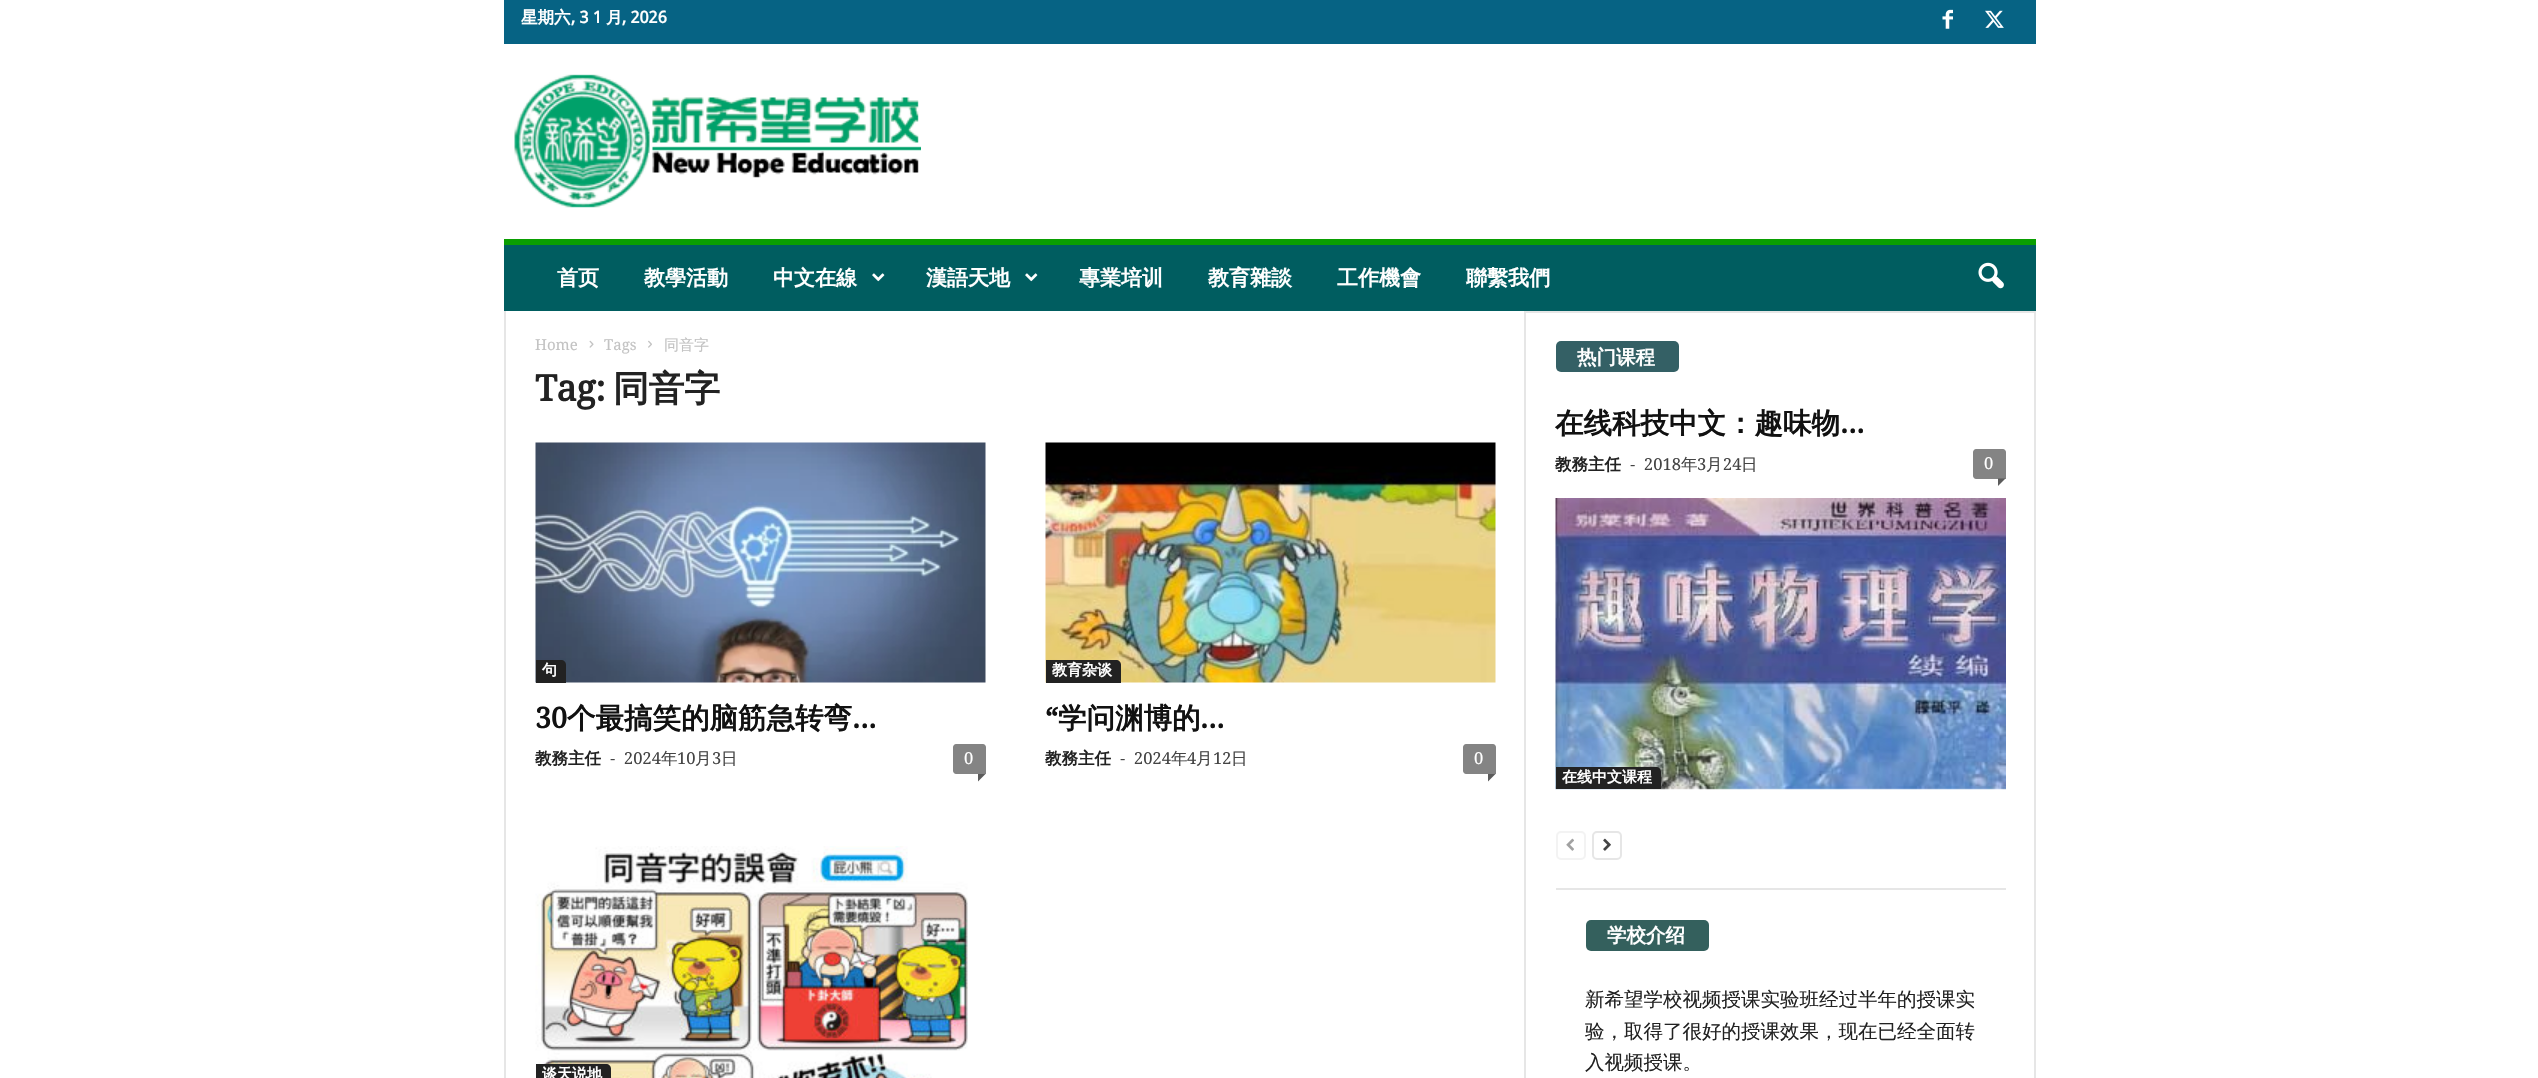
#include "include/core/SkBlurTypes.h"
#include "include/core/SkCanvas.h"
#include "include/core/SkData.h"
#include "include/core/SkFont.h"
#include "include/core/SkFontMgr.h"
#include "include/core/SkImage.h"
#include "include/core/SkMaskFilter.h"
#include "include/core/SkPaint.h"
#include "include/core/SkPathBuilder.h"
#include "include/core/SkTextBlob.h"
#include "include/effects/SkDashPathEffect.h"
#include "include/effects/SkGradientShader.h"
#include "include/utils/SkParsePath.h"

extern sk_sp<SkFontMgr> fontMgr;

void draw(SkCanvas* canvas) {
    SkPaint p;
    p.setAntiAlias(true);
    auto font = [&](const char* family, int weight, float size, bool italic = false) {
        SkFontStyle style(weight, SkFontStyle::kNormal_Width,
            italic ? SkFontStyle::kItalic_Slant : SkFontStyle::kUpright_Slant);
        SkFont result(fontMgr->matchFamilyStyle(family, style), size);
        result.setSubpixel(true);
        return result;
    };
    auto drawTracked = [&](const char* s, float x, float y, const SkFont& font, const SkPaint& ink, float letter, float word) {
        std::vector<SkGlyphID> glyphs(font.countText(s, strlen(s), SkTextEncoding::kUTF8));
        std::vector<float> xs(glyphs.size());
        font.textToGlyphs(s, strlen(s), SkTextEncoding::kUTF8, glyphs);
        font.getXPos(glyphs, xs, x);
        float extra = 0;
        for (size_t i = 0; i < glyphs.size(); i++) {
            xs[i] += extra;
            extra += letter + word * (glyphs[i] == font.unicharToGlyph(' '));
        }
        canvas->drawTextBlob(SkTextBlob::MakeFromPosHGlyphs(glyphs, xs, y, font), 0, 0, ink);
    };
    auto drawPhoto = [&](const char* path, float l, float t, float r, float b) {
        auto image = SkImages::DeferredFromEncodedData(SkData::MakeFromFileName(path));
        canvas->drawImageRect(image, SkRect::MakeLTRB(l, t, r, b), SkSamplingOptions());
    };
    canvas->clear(0xFFFFFFFF);
    p.setColor(0xFF066384);
    canvas->drawRect(SkRect::MakeLTRB(504, 0, 2036, 44), p);
    auto font1 = font("WenQuanYi Zen Hei", 700, 16.5f);
    p.setColor(0xFFFFFFFF);
    canvas->drawString("星期六", 521, 23, font1, p);
    auto font2 = font("Droid Sans", 700, 16.5f);
    canvas->drawString(", 3 1", 571, 23, font2, p);
    canvas->drawString("月", 606, 23, font1, p);
    canvas->drawString(", 2026", 622, 23, font2, p);
    drawPhoto("media/1.png", 1942, 9, 1953, 29);
    drawPhoto("media/2.png", 1985, 10, 2004, 28);
    drawPhoto("media/3.png", 514, 74, 921, 208);
    p.setColor(0xFF005D60);
    canvas->drawRect(SkRect::MakeLTRB(504, 245, 2036, 311), p);
    p.setColor(0xFF0A9E01);
    canvas->drawRect(SkRect::MakeLTRB(504, 239, 2036, 245), p);
    auto font3 = font("WenQuanYi Zen Hei", 700, 21);
    p.setColor(0xFFFFFFFF);
    {
        const struct { const char* s; float x, y; } items[] = {
            {"首页", 557, 285},
            {"教學活動", 644, 285},
            {"中文在線", 773, 285},
        };
        for (auto [s, x, y] : items) {
            canvas->drawString(s, x, y, font3, p);
        }
    }
    drawPhoto("media/4.png", 872, 273, 885, 282);
    canvas->drawString("漢語天地", 926, 285, font3, p);
    drawPhoto("media/4.png", 1025, 273, 1038, 282);
    {
        const struct { const char* s; float x, y; } items[] = {
            {"專業培训", 1079, 285},
            {"教育雜談", 1208, 285},
            {"工作機會", 1337, 285},
            {"聯繫我們", 1466, 285},
        };
        for (auto [s, x, y] : items) {
            canvas->drawString(s, x, y, font3, p);
        }
    }
    drawPhoto("media/5.png", 1978, 262, 2004, 289);
    p.setColor(0xFFE6E6E6);
    canvas->drawRect(SkRect::MakeLTRB(504, 311, 506, 1078), p);
    auto font4 = font("Droid Serif", 400, 15);
    p.setColor(0xFFC3C3C3);
    canvas->drawString("Home", 535, 350, font4, p);
    drawPhoto("media/6.png", 589, 340, 594, 348);
    canvas->drawString("Tags", 604, 350, font4, p);
    drawPhoto("media/7.png", 648, 340, 652, 348);
    auto font5 = font("WenQuanYi Zen Hei", 500, 15);
    canvas->drawString("同音字", 664, 350, font5, p);
    auto font6 = font("Droid Serif", 700, 36);
    p.setColor(0xFF222222);
    drawTracked("Tag:", 535, 401, font6, p, -0.5f, 0);
    auto font7 = font("WenQuanYi Zen Hei", 700, 36);
    drawTracked("同音字", 613, 401, font7, p, -0.5f, 0);
    drawPhoto("media/8.png", 535, 442, 986, 683);
    canvas->drawPath(SkPathBuilder().moveTo(536, 660).lineTo(561, 660).cubicTo(564, 660, 566, 662, 566, 665).lineTo(566, 683).lineTo(536, 683).close().detach(), p);
    auto font8 = font("WenQuanYi Zen Hei", 700, 15);
    p.setColor(0xFFFFFFFF);
    canvas->drawString("句", 542, 675, font8, p);
    auto font9 = font("Droid Serif", 700, 28.5f);
    p.setColor(0xFF111111);
    canvas->drawString("30", 535, 728, font9, p);
    auto font10 = font("WenQuanYi Zen Hei", 700, 28.5f);
    canvas->drawString("个最搞笑的脑筋急转弯", 567, 728, font10, p);
    canvas->drawString("...", 852, 728, font9, p);
    p.setColor(0xFF222222);
    canvas->drawString("教務主任", 535, 764, font1, p);
    auto font11 = font("Open Sans", 400, 16.5f);
    p.setColor(0xFF444444);
    canvas->drawString("-", 610, 764, font11, p);
    auto font12 = font("Droid Serif", 400, 16.5f);
    canvas->drawString("2024", 624, 764, font12, p);
    auto font13 = font("WenQuanYi Zen Hei", 500, 16.5f);
    canvas->drawString("年", 661, 764, font13, p);
    canvas->drawString("10", 677, 764, font12, p);
    canvas->drawString("月", 695, 764, font13, p);
    canvas->drawString("3", 712, 764, font12, p);
    canvas->drawString("日", 721, 764, font13, p);
    p.setColor(0xFF848484);
    canvas->drawPath(SkPathBuilder().moveTo(956, 744).lineTo(983, 744).cubicTo(984.5f, 744, 986, 745.5f, 986, 747).lineTo(986, 774).lineTo(956, 774).cubicTo(954.5f, 774, 953, 772.5f, 953, 771).lineTo(953, 747).cubicTo(953, 745.5f, 954.5f, 744, 956, 744).close().detach(), p);
    p.setColor(0xFFFFFFFF);
    canvas->drawString("0", 964, 764, font12, p);
    p.setColor(0xFF5B5B5B);
    canvas->drawPath(SkPathBuilder().moveTo(978, 774).lineTo(985.5f, 774).lineTo(978, 781.5f).close().detach(), p);
    drawPhoto("media/9.png", 1045, 442, 1496, 683);
    p.setColor(0xFF222222);
    canvas->drawPath(SkPathBuilder().moveTo(1046, 660).lineTo(1116, 660).cubicTo(1119, 660, 1121, 662, 1121, 665).lineTo(1121, 683).lineTo(1046, 683).close().detach(), p);
    p.setColor(0xFFFFFFFF);
    canvas->drawString("教育杂谈", 1052, 675, font8, p);
    p.setColor(0xFF111111);
    canvas->drawString("“", 1045, 728, font9, p);
    canvas->drawString("学问渊博的", 1058, 728, font10, p);
    canvas->drawString("...", 1200, 728, font9, p);
    p.setColor(0xFF222222);
    canvas->drawString("教務主任", 1045, 764, font1, p);
    p.setColor(0xFF444444);
    canvas->drawString("-", 1120, 764, font11, p);
    canvas->drawString("2024", 1134, 764, font12, p);
    canvas->drawString("年", 1171, 764, font13, p);
    canvas->drawString("4", 1187, 764, font12, p);
    canvas->drawString("月", 1196, 764, font13, p);
    canvas->drawString("12", 1213, 764, font12, p);
    canvas->drawString("日", 1231, 764, font13, p);
    p.setColor(0xFF848484);
    canvas->drawPath(SkPathBuilder().moveTo(1466, 744).lineTo(1493, 744).cubicTo(1494.5f, 744, 1496, 745.5f, 1496, 747).lineTo(1496, 774).lineTo(1466, 774).cubicTo(1464.5f, 774, 1463, 772.5f, 1463, 771).lineTo(1463, 747).cubicTo(1463, 745.5f, 1464.5f, 744, 1466, 744).close().detach(), p);
    p.setColor(0xFFFFFFFF);
    canvas->drawString("0", 1474, 764, font12, p);
    p.setColor(0xFF5B5B5B);
    canvas->drawPath(SkPathBuilder().moveTo(1488, 774).lineTo(1495.5f, 774).lineTo(1488, 781.5f).close().detach(), p);
    drawPhoto("media/10.png", 535, 846, 968, 1078);
    p.setColor(0xFF222222);
    canvas->drawPath(SkPathBuilder().moveTo(536, 1064).lineTo(606, 1064).cubicTo(609, 1064, 611, 1066, 611, 1069).lineTo(611, 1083).lineTo(536, 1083).close().detach(), p);
    p.setColor(0xFFFFFFFF);
    canvas->drawString("谈天说地", 542, 1079, font8, p);
    p.setColor(0xFFE6E6E6);
    canvas->drawRect(SkRect::MakeLTRB(1524, 311, 1526, 1078), p);
    canvas->drawRect(SkRect::MakeLTRB(1526, 311, 2034, 313), p);
    p.setColor(0xFF346065);
    canvas->drawRoundRect(SkRect::MakeLTRB(1556, 341, 1679, 372), 5, 5, p);
    auto font14 = font("WenQuanYi Zen Hei", 700, 19.5f);
    p.setColor(0xFFFFFFFF);
    canvas->drawString("热门课程", 1577, 364, font14, p);
    p.setColor(0xFF111111);
    canvas->drawString("在线科技中文：趣味物", 1555, 433, font10, p);
    canvas->drawString("...", 1840, 433, font9, p);
    p.setColor(0xFF222222);
    canvas->drawString("教務主任", 1555, 470, font1, p);
    p.setColor(0xFF444444);
    canvas->drawString("-", 1630, 470, font11, p);
    canvas->drawString("2018", 1644, 470, font12, p);
    canvas->drawString("年", 1681, 470, font13, p);
    canvas->drawString("3", 1697, 470, font12, p);
    canvas->drawString("月", 1706, 470, font13, p);
    canvas->drawString("24", 1723, 470, font12, p);
    canvas->drawString("日", 1741, 470, font13, p);
    p.setColor(0xFF848484);
    canvas->drawPath(SkPathBuilder().moveTo(1976, 449).lineTo(2003, 449).cubicTo(2004.5f, 449, 2006, 450.5f, 2006, 452).lineTo(2006, 479).lineTo(1976, 479).cubicTo(1974.5f, 479, 1973, 477.5f, 1973, 476).lineTo(1973, 452).cubicTo(1973, 450.5f, 1974.5f, 449, 1976, 449).close().detach(), p);
    p.setColor(0xFFFFFFFF);
    canvas->drawString("0", 1984, 469, font12, p);
    p.setColor(0xFF5B5B5B);
    canvas->drawPath(SkPathBuilder().moveTo(1998, 478.5f).lineTo(2005.5f, 478.5f).lineTo(1998, 486).close().detach(), p);
    drawPhoto("media/11.png", 1555, 498, 2006, 790);
    p.setColor(0xFF222222);
    canvas->drawPath(SkPathBuilder().moveTo(1556, 767).lineTo(1656, 767).cubicTo(1659, 767, 1661, 769, 1661, 772).lineTo(1661, 789).lineTo(1556, 789).close().detach(), p);
    p.setColor(0xFFFFFFFF);
    canvas->drawString("在线中文课程", 1562, 782, font8, p);
    p.setStyle(SkPaint::kStroke_Style);
    p.setStrokeWidth(2);
    p.setColor(0xFFF3F3F3);
    canvas->drawRoundRect(SkRect::MakeLTRB(1557, 832, 1585, 859), 4, 4, p);
    drawPhoto("media/12.png", 1566, 838, 1574, 851);
    p.setColor(0xFFE6E6E6);
    canvas->drawRoundRect(SkRect::MakeLTRB(1593, 832, 1621, 859), 4, 4, p);
    drawPhoto("media/13.png", 1603, 838, 1611, 851);
    p.setStyle(SkPaint::kFill_Style);
    canvas->drawRect(SkRect::MakeLTRB(1556, 888, 2006, 890), p);
    p.setColor(0xFF34605D);
    canvas->drawRoundRect(SkRect::MakeLTRB(1586, 920, 1709, 951), 5, 5, p);
    p.setColor(0xFFFFFFFF);
    canvas->drawString("学校介绍", 1607, 942, font14, p);
    auto font15 = font("WenQuanYi Zen Hei", 500, 19.5f);
    p.setColor(0xFF222222);
    {
        const struct { const char* s; float x, y; } items[] = {
            {"新希望学校视频授课实验班经过半年的授课实", 1585, 1006},
            {"验，取得了很好的授课效果，现在已经全面转", 1585, 1038},
            {"入视频授课。", 1585, 1069},
        };
        for (auto [s, x, y] : items) {
            canvas->drawString(s, x, y, font15, p);
        }
    }
    p.setColor(0xFFE6E6E6);
    canvas->drawRect(SkRect::MakeLTRB(2034, 311, 2036, 1078), p);
}
